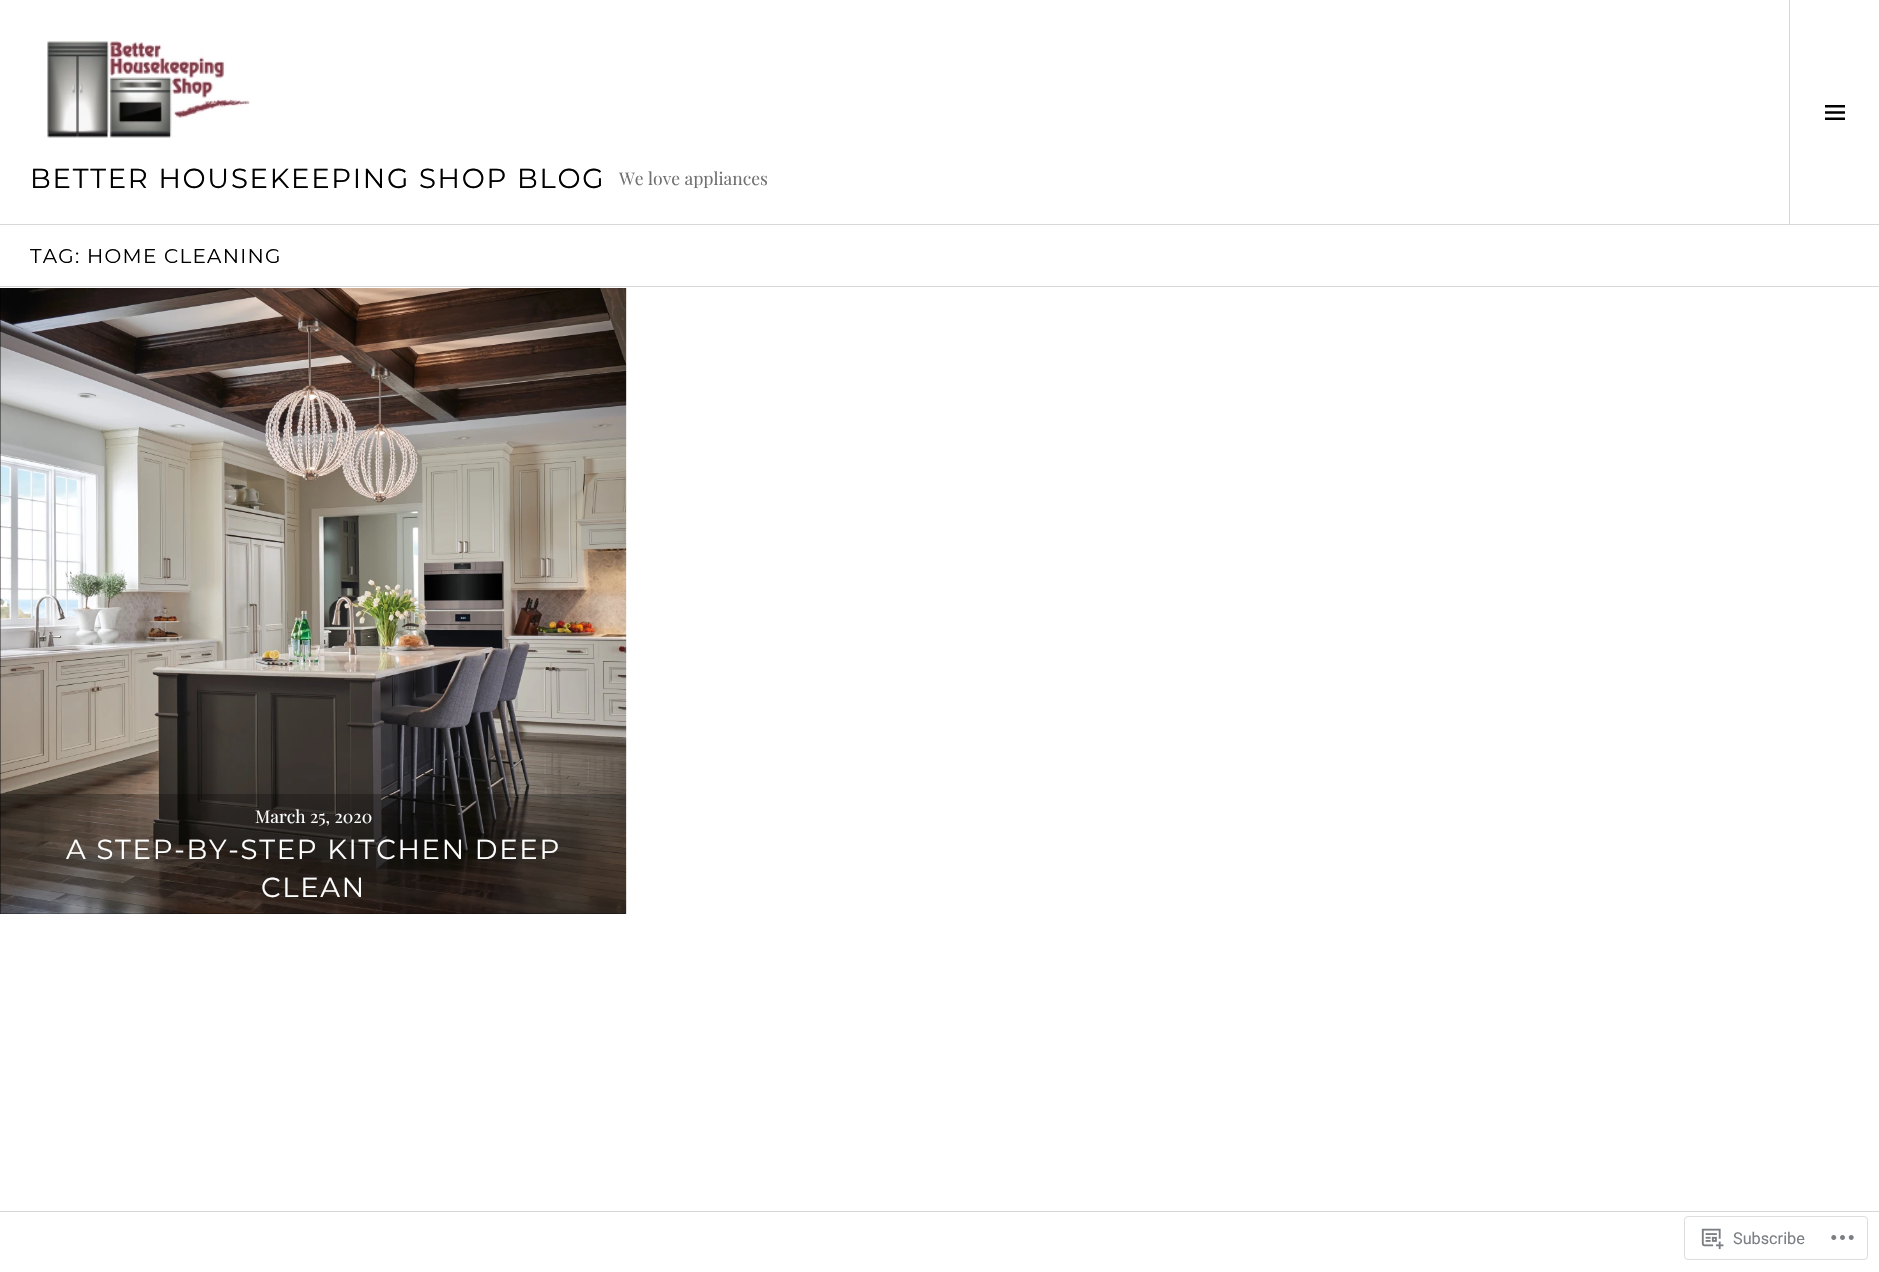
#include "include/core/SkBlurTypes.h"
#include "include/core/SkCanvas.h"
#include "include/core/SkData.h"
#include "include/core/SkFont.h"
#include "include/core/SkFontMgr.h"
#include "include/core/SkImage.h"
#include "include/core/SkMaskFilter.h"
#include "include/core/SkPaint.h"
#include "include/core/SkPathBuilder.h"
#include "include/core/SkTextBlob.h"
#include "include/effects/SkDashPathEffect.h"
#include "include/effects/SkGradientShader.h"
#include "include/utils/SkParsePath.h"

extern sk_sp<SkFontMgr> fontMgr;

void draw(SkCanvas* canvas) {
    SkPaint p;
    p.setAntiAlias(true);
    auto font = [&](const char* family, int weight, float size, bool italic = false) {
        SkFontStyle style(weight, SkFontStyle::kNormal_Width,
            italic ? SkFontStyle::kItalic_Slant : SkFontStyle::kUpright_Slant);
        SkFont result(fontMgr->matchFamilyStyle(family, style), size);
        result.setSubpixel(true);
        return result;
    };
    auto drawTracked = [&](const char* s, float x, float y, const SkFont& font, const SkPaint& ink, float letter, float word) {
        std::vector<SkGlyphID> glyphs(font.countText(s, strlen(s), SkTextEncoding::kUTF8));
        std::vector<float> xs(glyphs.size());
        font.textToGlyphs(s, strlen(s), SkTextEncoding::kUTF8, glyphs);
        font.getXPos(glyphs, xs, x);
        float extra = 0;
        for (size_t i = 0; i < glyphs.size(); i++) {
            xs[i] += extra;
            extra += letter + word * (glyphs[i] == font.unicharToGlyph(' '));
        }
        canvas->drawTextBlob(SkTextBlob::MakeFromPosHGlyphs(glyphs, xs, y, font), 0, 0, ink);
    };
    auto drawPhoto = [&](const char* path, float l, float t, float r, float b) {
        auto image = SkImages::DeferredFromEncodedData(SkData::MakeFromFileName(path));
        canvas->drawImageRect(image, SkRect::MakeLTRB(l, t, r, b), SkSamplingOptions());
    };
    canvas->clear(0xFFFFFFFF);
    p.setColor(0xFFD8D8D8);
    canvas->drawRect(SkRect::MakeLTRB(0, 224, 1879, 225), p);
    drawPhoto("media/1.png", 47, 40, 250, 138);
    auto font1 = font("Montserrat", 400, 27.5f);
    p.setColor(0xFF000000);
    drawTracked("BETTER HOUSEKEEPING SHOP BLOG", 30, 188, font1, p, 1.75f, 0);
    auto font2 = font("Playfair Display", 400, 17.5f);
    p.setColor(0xFF707070);
    canvas->drawString("We love appliances", 619, 185, font2, p);
    p.setColor(0xFFD8D8D8);
    canvas->drawRect(SkRect::MakeLTRB(1789, 0, 1790, 224), p);
    drawPhoto("media/2.png", 1825, 105, 1845, 120);
    canvas->drawRect(SkRect::MakeLTRB(0, 286, 1879, 287), p);
    auto font3 = font("Montserrat", 400, 20);
    p.setColor(0xFF000000);
    drawTracked("TAG: HOME CLEANING", 30, 263, font3, p, 1.25f, 0);
    canvas->drawRect(SkRect::MakeLTRB(0, 288, 626, 914), p);
    drawPhoto("media/3.png", 0, 288, 627, 914);
    p.setColor(0x40000000);
    canvas->drawRect(SkRect::MakeLTRB(0, 794, 626, 914), p);
    p.setColor(0xFFFFFFFF);
    canvas->drawString("March 25, 2020", 255, 823, font2, p);
    drawTracked("A STEP-BY-STEP KITCHEN DEEP", 66, 859, font1, p, 1.75f, 0);
    drawTracked("CLEAN", 261, 897, font1, p, 1.75f, 0);
    p.setColor(0xFFD8D8D8);
    canvas->drawRect(SkRect::MakeLTRB(0, 1211, 1879, 1212), p);
    p.setStyle(SkPaint::kStroke_Style);
    p.setStrokeWidth(1);
    p.setColor(0xFFDDDDDF);
    canvas->drawRoundRect(SkRect::MakeLTRB(1684.5f, 1216.5f, 1867.5f, 1259.5f), 3.5f, 3.5f, p);
    drawPhoto("media/4.png", 1701, 1228, 1724, 1250);
    auto font4 = font("Roboto", 400, 16.25f);
    p.setStyle(SkPaint::kFill_Style);
    p.setColor(0xFF7B7F85);
    canvas->drawString("Subscribe", 1733, 1244, font4, p);
    drawPhoto("media/5.png", 1831, 1235, 1854, 1240);
}
